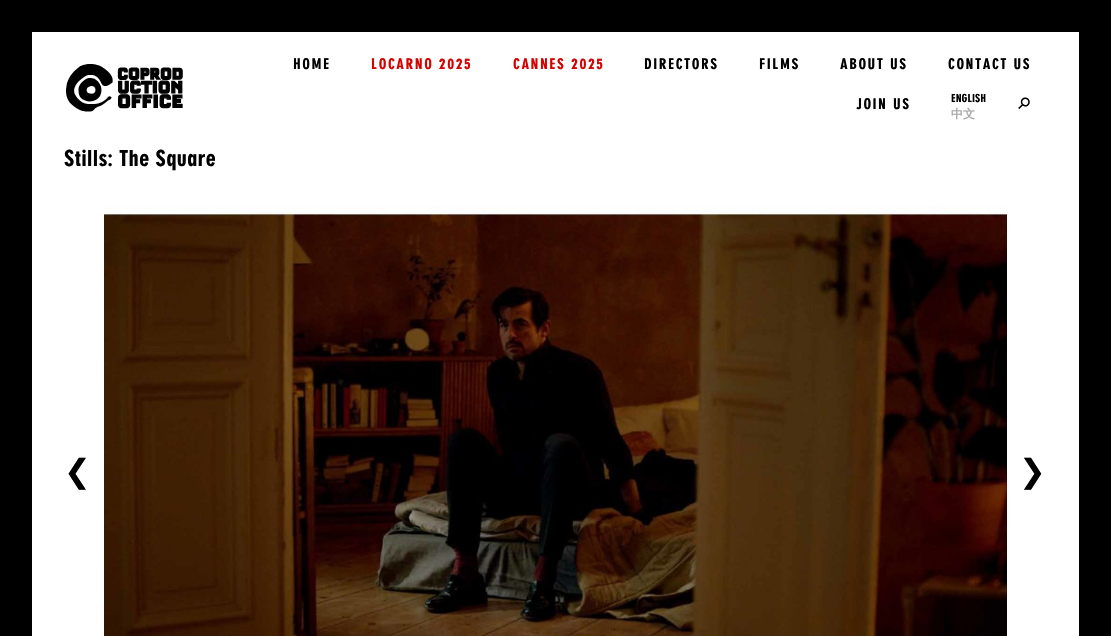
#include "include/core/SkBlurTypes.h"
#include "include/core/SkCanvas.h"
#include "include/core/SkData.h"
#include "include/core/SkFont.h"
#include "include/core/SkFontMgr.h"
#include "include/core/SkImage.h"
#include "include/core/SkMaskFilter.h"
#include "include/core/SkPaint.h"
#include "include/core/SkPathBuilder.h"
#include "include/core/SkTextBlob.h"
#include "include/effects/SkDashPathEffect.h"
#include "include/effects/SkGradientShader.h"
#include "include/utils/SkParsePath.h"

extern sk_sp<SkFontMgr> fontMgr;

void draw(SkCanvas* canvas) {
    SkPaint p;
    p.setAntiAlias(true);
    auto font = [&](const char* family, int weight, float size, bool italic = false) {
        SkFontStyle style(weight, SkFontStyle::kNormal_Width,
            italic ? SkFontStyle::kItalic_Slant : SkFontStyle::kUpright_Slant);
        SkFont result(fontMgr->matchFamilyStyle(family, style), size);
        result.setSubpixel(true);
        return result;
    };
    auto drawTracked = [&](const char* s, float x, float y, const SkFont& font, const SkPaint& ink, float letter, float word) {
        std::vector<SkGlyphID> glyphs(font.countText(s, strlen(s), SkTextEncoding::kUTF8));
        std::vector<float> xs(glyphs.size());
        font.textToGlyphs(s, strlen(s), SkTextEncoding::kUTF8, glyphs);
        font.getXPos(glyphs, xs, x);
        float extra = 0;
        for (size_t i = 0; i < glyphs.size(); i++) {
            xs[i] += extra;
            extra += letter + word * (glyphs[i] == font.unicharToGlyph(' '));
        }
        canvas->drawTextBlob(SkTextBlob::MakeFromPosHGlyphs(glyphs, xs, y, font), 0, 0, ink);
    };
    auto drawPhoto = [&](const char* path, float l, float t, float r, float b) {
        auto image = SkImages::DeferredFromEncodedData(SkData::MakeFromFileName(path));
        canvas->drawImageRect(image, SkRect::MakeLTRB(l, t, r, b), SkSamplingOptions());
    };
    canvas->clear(0xFF000000);
    p.setColor(0xFFFFFFFF);
    canvas->drawRect(SkRect::MakeLTRB(32, 32, 1079, 636), p);
    drawPhoto("media/1.png", 66, 64, 183, 112);
    auto font1 = font("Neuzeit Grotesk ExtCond", 900, 16);
    p.setColor(0xFF000000);
    drawTracked("HOME", 293, 69, font1, p, 1.5f, 0);
    p.setColor(0xFFD50200);
    drawTracked("LOCARNO 2025", 371, 69, font1, p, 1.5f, 0);
    drawTracked("CANNES 2025", 513, 69, font1, p, 1.5f, 0);
    p.setColor(0xFF000000);
    {
        const struct { const char* s; float x, y; } items[] = {
            {"DIRECTORS", 644, 69},
            {"FILMS", 759, 69},
            {"ABOUT US", 840, 69},
            {"CONTACT US", 948, 69},
            {"JOIN US", 856, 109},
        };
        for (auto [s, x, y] : items) {
            drawTracked(s, x, y, font1, p, 1.5f, 0);
        }
    }
    auto font2 = font("Neuzeit Grotesk ExtCond", 900, 12);
    canvas->drawString("ENGLISH", 951, 102, font2, p);
    auto font3 = font("WenQuanYi Zen Hei", 700, 12);
    p.setColor(0xFFA8A8A8);
    canvas->drawString("中文", 951, 118, font3, p);
    auto font4 = font("DejaVu Sans", 400, 16);
    p.setColor(0xFF000000);
    canvas->save();
    canvas->rotate(45, 1016, 103);
    drawTracked("⚲", 1016, 103, font4, p, 1.5f, 0);
    canvas->restore();
    auto font5 = font("Neuzeit Grotesk ExtCond", 900, 24);
    canvas->drawString("Stills: The Square", 64, 166, font5, p);
    auto font6 = font("DejaVu Sans", 400, 32);
    drawTracked("❮", 64, 482, font6, p, 1.5f, 0);
    drawPhoto("media/2.png", 104, 205, 1007, 636);
    drawTracked("❯", 1019, 482, font6, p, 1.5f, 0);
}
